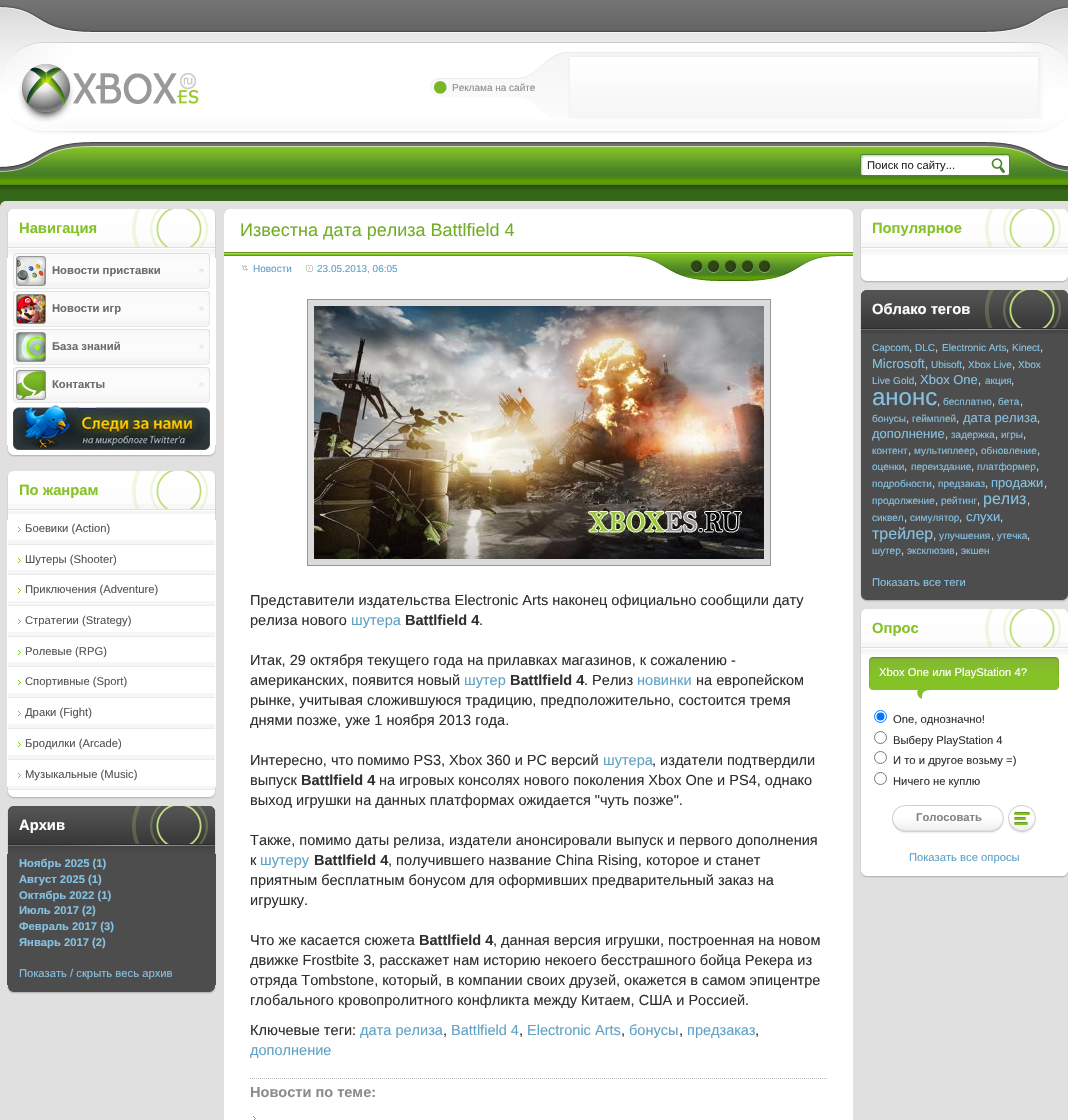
#include "include/core/SkBlurTypes.h"
#include "include/core/SkCanvas.h"
#include "include/core/SkData.h"
#include "include/core/SkFont.h"
#include "include/core/SkFontMgr.h"
#include "include/core/SkImage.h"
#include "include/core/SkMaskFilter.h"
#include "include/core/SkPaint.h"
#include "include/core/SkPathBuilder.h"
#include "include/core/SkTextBlob.h"
#include "include/effects/SkDashPathEffect.h"
#include "include/effects/SkGradientShader.h"
#include "include/utils/SkParsePath.h"

extern sk_sp<SkFontMgr> fontMgr;

void draw(SkCanvas* canvas) {
    SkPaint p;
    p.setAntiAlias(true);
    auto font = [&](const char* family, int weight, float size, bool italic = false) {
        SkFontStyle style(weight, SkFontStyle::kNormal_Width,
            italic ? SkFontStyle::kItalic_Slant : SkFontStyle::kUpright_Slant);
        SkFont result(fontMgr->matchFamilyStyle(family, style), size);
        result.setSubpixel(true);
        return result;
    };
    auto drawPhoto = [&](const char* path, float l, float t, float r, float b) {
        auto image = SkImages::DeferredFromEncodedData(SkData::MakeFromFileName(path));
        canvas->drawImageRect(image, SkRect::MakeLTRB(l, t, r, b), SkSamplingOptions());
    };
    canvas->clear(0xFFFFFFFF);
    drawPhoto("media/1.png", 0, 185, 1068, 201);
    drawPhoto("media/2.png", 0, 0, 1068, 33);
    drawPhoto("media/3.png", 0, 5, 90, 33);
    drawPhoto("media/4.png", 987, 6, 1068, 33);
    drawPhoto("media/5.png", 0, 33, 1068, 146);
    drawPhoto("media/6.png", 0, 42, 90, 146);
    drawPhoto("media/7.png", 987, 42, 1068, 146);
    drawPhoto("media/8.png", 18, 64, 199, 122);
    drawPhoto("media/9.png", 430, 52, 1043, 119);
    auto font1 = font("Liberation Sans", 400, 10);
    p.setColor(0xFF8C8C8C);
    canvas->drawString("Реклама на сайте", 452, 91, font1, p);
    drawPhoto("media/10.png", 0, 146, 1068, 185);
    drawPhoto("media/11.png", 0, 146, 90, 172);
    drawPhoto("media/12.png", 987, 146, 1068, 172);
    drawPhoto("media/13.png", 860, 154, 991, 176);
    auto font2 = font("Liberation Sans", 400, 11.25f);
    p.setColor(0xFF292929);
    canvas->drawString("Поиск по сайту...", 867, 169, font2, p);
    drawPhoto("media/14.png", 991, 154, 1010, 176);
    {
        const struct { float l, t, r, b; SkColor color; } items[] = {
            {229, 201, 853, 209, 0xFFE0E0E0},
            {0, 215, 224, 1120, 0xFFE0E0E0},
            {853, 201, 1068, 1120, 0xFFE0E0E0},
        };
        for (auto [l, t, r, b, color] : items) {
            p.setColor(color);
            canvas->drawRect(SkRect::MakeLTRB(l, t, r, b), p);
        }
    }
    drawPhoto("media/15.png", 0, 201, 229, 215);
    drawPhoto("media/16.png", 848, 209, 854, 215);
    p.setColor(0xFFFFFFFF);
    canvas->drawRect(SkRect::MakeLTRB(7, 258, 216, 445), p);
    drawPhoto("media/17.png", 7, 209, 216, 258);
    drawPhoto("media/18.png", 7, 445, 216, 457);
    auto font3 = font("Liberation Sans", 700, 14.75f);
    p.setColor(0xFF85C226);
    canvas->drawString("Навигация", 19, 233, font3, p);
    drawPhoto("media/19.png", 13, 253, 210, 289);
    drawPhoto("media/20.png", 16, 256, 46, 286);
    auto font4 = font("Liberation Sans", 700, 11.25f);
    p.setColor(0xFF6C6C6C);
    canvas->drawString("Новости приставки", 52, 274, font4, p);
    drawPhoto("media/19.png", 13, 291, 210, 327);
    drawPhoto("media/21.png", 16, 294, 46, 324);
    canvas->drawString("Новости игр", 52, 312, font4, p);
    drawPhoto("media/19.png", 13, 329, 210, 365);
    drawPhoto("media/22.png", 16, 332, 46, 362);
    canvas->drawString("База знаний", 52, 350, font4, p);
    drawPhoto("media/19.png", 13, 367, 210, 403);
    drawPhoto("media/23.png", 16, 370, 46, 400);
    canvas->drawString("Контакты", 52, 388, font4, p);
    drawPhoto("media/24.png", 13, 405, 210, 450);
    p.setColor(0xFFFFFFFF);
    canvas->drawRect(SkRect::MakeLTRB(7, 520, 216, 787), p);
    drawPhoto("media/17.png", 7, 471, 216, 520);
    drawPhoto("media/18.png", 7, 787, 216, 799);
    p.setColor(0xFF85C226);
    canvas->drawString("По жанрам", 19, 495, font3, p);
    {
        const struct { float l, t, r, b; SkColor color; } items[] = {
            {8, 514, 215, 519, 0xFFFFFFFF},
            {8, 540, 215, 544, 0xFFF6F6F6},
            {8, 544, 215, 545, 0xFFEAEAEA},
        };
        for (auto [l, t, r, b, color] : items) {
            p.setColor(color);
            canvas->drawRect(SkRect::MakeLTRB(l, t, r, b), p);
        }
    }
    drawPhoto("media/25.png", 18, 527, 21, 532);
    p.setColor(0xFF545454);
    canvas->drawString("Боевики (Action)", 25, 532, font2, p);
    p.setColor(0xFFF6F6F6);
    canvas->drawRect(SkRect::MakeLTRB(8, 570, 215, 574), p);
    p.setColor(0xFFEAEAEA);
    canvas->drawRect(SkRect::MakeLTRB(8, 574, 215, 575), p);
    drawPhoto("media/25.png", 18, 558, 21, 563);
    p.setColor(0xFF545454);
    canvas->drawString("Шутеры (Shooter)", 25, 563, font2, p);
    p.setColor(0xFFF6F6F6);
    canvas->drawRect(SkRect::MakeLTRB(8, 601, 215, 605), p);
    p.setColor(0xFFEAEAEA);
    canvas->drawRect(SkRect::MakeLTRB(8, 605, 215, 606), p);
    drawPhoto("media/25.png", 18, 588, 21, 593);
    p.setColor(0xFF545454);
    canvas->drawString("Приключения (Adventure)", 25, 593, font2, p);
    p.setColor(0xFFF6F6F6);
    canvas->drawRect(SkRect::MakeLTRB(8, 632, 215, 636), p);
    p.setColor(0xFFEAEAEA);
    canvas->drawRect(SkRect::MakeLTRB(8, 636, 215, 637), p);
    drawPhoto("media/25.png", 18, 619, 21, 624);
    p.setColor(0xFF545454);
    canvas->drawString("Стратегии (Strategy)", 25, 624, font2, p);
    p.setColor(0xFFF6F6F6);
    canvas->drawRect(SkRect::MakeLTRB(8, 662, 215, 666), p);
    p.setColor(0xFFEAEAEA);
    canvas->drawRect(SkRect::MakeLTRB(8, 666, 215, 667), p);
    drawPhoto("media/25.png", 18, 650, 21, 655);
    p.setColor(0xFF545454);
    canvas->drawString("Ролевые (RPG)", 25, 655, font2, p);
    p.setColor(0xFFF6F6F6);
    canvas->drawRect(SkRect::MakeLTRB(8, 693, 215, 697), p);
    p.setColor(0xFFEAEAEA);
    canvas->drawRect(SkRect::MakeLTRB(8, 697, 215, 698), p);
    drawPhoto("media/25.png", 18, 680, 21, 685);
    p.setColor(0xFF545454);
    canvas->drawString("Спортивные (Sport)", 25, 685, font2, p);
    p.setColor(0xFFF6F6F6);
    canvas->drawRect(SkRect::MakeLTRB(8, 724, 215, 728), p);
    p.setColor(0xFFEAEAEA);
    canvas->drawRect(SkRect::MakeLTRB(8, 728, 215, 729), p);
    drawPhoto("media/25.png", 18, 711, 21, 716);
    p.setColor(0xFF545454);
    canvas->drawString("Драки (Fight)", 25, 716, font2, p);
    p.setColor(0xFFF6F6F6);
    canvas->drawRect(SkRect::MakeLTRB(8, 755, 215, 759), p);
    p.setColor(0xFFEAEAEA);
    canvas->drawRect(SkRect::MakeLTRB(8, 759, 215, 760), p);
    drawPhoto("media/25.png", 18, 742, 21, 747);
    p.setColor(0xFF545454);
    canvas->drawString("Бродилки (Arcade)", 25, 747, font2, p);
    p.setColor(0xFFF6F6F6);
    canvas->drawRect(SkRect::MakeLTRB(8, 786, 215, 789), p);
    p.setColor(0xFFEAEAEA);
    canvas->drawRect(SkRect::MakeLTRB(8, 789, 215, 790), p);
    drawPhoto("media/25.png", 18, 773, 21, 778);
    p.setColor(0xFF545454);
    canvas->drawString("Музыкальные (Music)", 25, 778, font2, p);
    p.setColor(0xFF4D4D4D);
    canvas->drawRect(SkRect::MakeLTRB(7, 854, 216, 985), p);
    drawPhoto("media/26.png", 7, 806, 216, 854);
    drawPhoto("media/27.png", 7, 985, 216, 994);
    p.setColor(0xFFFFFFFF);
    canvas->drawString("Архив", 19, 830, font3, p);
    p.setColor(0xFF86C1E2);
    {
        const struct { const char* s; float x, y; } items[] = {
            {"Ноябрь 2025 (1)", 19, 867},
            {"Август 2025 (1)", 19, 883},
            {"Октябрь 2022 (1)", 19, 899},
            {"Июль 2017 (2)", 19, 914},
            {"Февраль 2017 (3)", 19, 930},
            {"Январь 2017 (2)", 19, 946},
        };
        for (auto [s, x, y] : items) {
            canvas->drawString(s, x, y, font4, p);
        }
    }
    canvas->drawString("Показать / скрыть весь архив", 19, 977, font2, p);
    auto font5 = font("Liberation Sans", 400, 18);
    p.setColor(0xFF73AE27);
    canvas->drawString("Известна дата релиза Battlfield 4", 240, 236, font5, p);
    drawPhoto("media/28.png", 224, 252, 853, 256);
    drawPhoto("media/29.png", 242, 265, 248, 271);
    p.setColor(0xFF60A2C6);
    canvas->drawString("Новости", 253, 272, font1, p);
    drawPhoto("media/30.png", 306, 265, 313, 272);
    canvas->drawString("23.05.2013, 06:05", 317, 272, font1, p);
    drawPhoto("media/31.png", 628, 255, 837, 281);
    drawPhoto("media/32.png", 690, 260, 771, 273);
    p.setColor(0xFFDBDBDB);
    canvas->drawRect(SkRect::MakeLTRB(307.5f, 299.5f, 770.5f, 565.5f), p);
    p.setStyle(SkPaint::kStroke_Style);
    p.setStrokeWidth(1);
    p.setColor(0xFF979797);
    canvas->drawRect(SkRect::MakeLTRB(307.5f, 299.5f, 770.5f, 565.5f), p);
    drawPhoto("media/33.png", 314, 306, 764, 559);
    auto font6 = font("Liberation Sans", 400, 14.55f);
    p.setStyle(SkPaint::kFill_Style);
    p.setColor(0xFF303030);
    canvas->drawString("Представители издательства Electronic Arts наконец официально сообщили дату", 250, 605, font6, p);
    canvas->drawString("релиза нового", 250, 625, font6, p);
    p.setColor(0xFF60A2C6);
    canvas->drawString("шутера", 351, 625, font6, p);
    auto font7 = font("Liberation Sans", 700, 14.55f);
    p.setColor(0xFF303030);
    canvas->drawString("Battlfield 4", 405, 625, font7, p);
    {
        const struct { const char* s; float x, y; } items[] = {
            {".", 479, 625},
            {"Итак, 29 октября текущего года на прилавках магазинов, к сожалению -", 250, 665},
            {"американских, появится новый", 250, 685},
        };
        for (auto [s, x, y] : items) {
            canvas->drawString(s, x, y, font6, p);
        }
    }
    p.setColor(0xFF60A2C6);
    canvas->drawString("шутер", 464, 685, font6, p);
    p.setColor(0xFF303030);
    canvas->drawString("Battlfield 4", 510, 685, font7, p);
    canvas->drawString(". Релиз", 584, 685, font6, p);
    p.setColor(0xFF60A2C6);
    canvas->drawString("новинки", 637, 685, font6, p);
    p.setColor(0xFF303030);
    {
        const struct { const char* s; float x, y; } items[] = {
            {"на европейском", 696, 685},
            {"рынке, учитывая сложившуюся традицию, предположительно, состоится тремя", 250, 705},
            {"днями позже, уже 1 ноября 2013 года.", 250, 725},
            {"Интересно, что помимо PS3, Xbox 360 и PC версий", 250, 765},
        };
        for (auto [s, x, y] : items) {
            canvas->drawString(s, x, y, font6, p);
        }
    }
    p.setColor(0xFF60A2C6);
    canvas->drawString("шутера", 603, 765, font6, p);
    p.setColor(0xFF303030);
    canvas->drawString(", издатели подтвердили", 652, 765, font6, p);
    canvas->drawString("выпуск", 250, 785, font6, p);
    canvas->drawString("Battlfield 4", 301, 785, font7, p);
    {
        const struct { const char* s; float x, y; } items[] = {
            {"на игровых консолях нового поколения Xbox One и PS4, однако", 379, 785},
            {"выход игрушки на данных платформах ожидается \"чуть позже\".", 250, 805},
            {"Также, помимо даты релиза, издатели анонсировали выпуск и первого дополнения", 250, 845},
            {"к", 250, 865},
        };
        for (auto [s, x, y] : items) {
            canvas->drawString(s, x, y, font6, p);
        }
    }
    p.setColor(0xFF60A2C6);
    canvas->drawString("шутеру", 260, 865, font6, p);
    p.setColor(0xFF303030);
    canvas->drawString("Battlfield 4", 314, 865, font7, p);
    {
        const struct { const char* s; float x, y; } items[] = {
            {", получившего название China Rising, которое и станет", 388, 865},
            {"приятным бесплатным бонусом для оформивших предварительный заказ на", 250, 885},
            {"игрушку.", 250, 905},
            {"Что же касается сюжета", 250, 945},
        };
        for (auto [s, x, y] : items) {
            canvas->drawString(s, x, y, font6, p);
        }
    }
    canvas->drawString("Battlfield 4", 419, 945, font7, p);
    {
        const struct { const char* s; float x, y; } items[] = {
            {", данная версия игрушки, построенная на новом", 493, 945},
            {"движке Frostbite 3, расскажет нам историю некоего бесстрашного бойца Рекера из", 250, 965},
            {"отряда Tombstone, который, в компании своих друзей, окажется в самом эпицентре", 250, 985},
            {"глобального кровопролитного конфликта между Китаем, США и Россией.", 250, 1005},
            {"Ключевые теги:", 250, 1035},
        };
        for (auto [s, x, y] : items) {
            canvas->drawString(s, x, y, font6, p);
        }
    }
    p.setColor(0xFF60A2C6);
    canvas->drawString("дата релиза", 360, 1035, font6, p);
    p.setColor(0xFF303030);
    canvas->drawString(",", 443, 1035, font6, p);
    p.setColor(0xFF60A2C6);
    canvas->drawString("Battlfield 4", 451, 1035, font6, p);
    p.setColor(0xFF303030);
    canvas->drawString(",", 519, 1035, font6, p);
    p.setColor(0xFF60A2C6);
    canvas->drawString("Electronic Arts", 527, 1035, font6, p);
    p.setColor(0xFF303030);
    canvas->drawString(",", 621, 1035, font6, p);
    p.setColor(0xFF60A2C6);
    canvas->drawString("бонусы", 629, 1035, font6, p);
    p.setColor(0xFF303030);
    canvas->drawString(",", 679, 1035, font6, p);
    p.setColor(0xFF60A2C6);
    canvas->drawString("предзаказ", 687, 1035, font6, p);
    p.setColor(0xFF303030);
    canvas->drawString(",", 755, 1035, font6, p);
    p.setColor(0xFF60A2C6);
    canvas->drawString("дополнение", 250, 1055, font6, p);
    p.setStyle(SkPaint::kStroke_Style);
    p.setColor(0xFFB6B6B6);
    p.setPathEffect(SkDashPathEffect::Make({{1, 1}}, 0));
    canvas->drawPath(SkPathBuilder().moveTo(250, 1078.5f).lineTo(827, 1078.5f).detach(), p);
    p.setPathEffect(nullptr);
    p.setStyle(SkPaint::kFill_Style);
    p.setColor(0xFF8C8C8C);
    canvas->drawString("Новости по теме:", 250, 1097, font7, p);
    drawPhoto("media/34.png", 253, 1116, 256, 1120);
    p.setColor(0xFFFFFFFF);
    canvas->drawRect(SkRect::MakeLTRB(861, 255, 1068, 276), p);
    p.setColor(0xFFD3D3D3);
    canvas->drawRect(SkRect::MakeLTRB(860, 255, 861, 283), p);
    drawPhoto("media/35.png", 860, 209, 1068, 255);
    drawPhoto("media/36.png", 860, 276, 1068, 283);
    p.setColor(0xFF85C226);
    canvas->drawString("Популярное", 872, 233, font3, p);
    p.setColor(0xFF4D4D4D);
    canvas->drawRect(SkRect::MakeLTRB(861, 334, 1068, 594), p);
    p.setColor(0xFFD3D3D3);
    canvas->drawRect(SkRect::MakeLTRB(860, 334, 861, 602), p);
    drawPhoto("media/37.png", 860, 290, 1068, 334);
    drawPhoto("media/38.png", 860, 594, 1068, 602);
    p.setColor(0xFFFFFFFF);
    canvas->drawString("Облако тегов", 872, 314, font3, p);
    p.setColor(0xFF86C1E2);
    canvas->drawString("Capcom", 872, 351, font1, p);
    p.setColor(0xFFD9D9D9);
    canvas->drawString(",", 909, 351, font2, p);
    p.setColor(0xFF86C1E2);
    canvas->drawString("DLC", 915, 351, font1, p);
    p.setColor(0xFFD9D9D9);
    canvas->drawString(",", 935, 351, font2, p);
    p.setColor(0xFF86C1E2);
    canvas->drawString("Electronic Arts", 942, 351, font1, p);
    p.setColor(0xFFD9D9D9);
    canvas->drawString(",", 1006, 351, font2, p);
    p.setColor(0xFF86C1E2);
    canvas->drawString("Kinect", 1012, 351, font1, p);
    p.setColor(0xFFD9D9D9);
    canvas->drawString(",", 1040, 351, font2, p);
    auto font8 = font("Liberation Sans", 400, 13);
    p.setColor(0xFF86C1E2);
    canvas->drawString("Microsoft", 872, 368, font8, p);
    p.setColor(0xFFD9D9D9);
    canvas->drawString(",", 925, 368, font2, p);
    p.setColor(0xFF86C1E2);
    canvas->drawString("Ubisoft", 931, 368, font1, p);
    p.setColor(0xFFD9D9D9);
    canvas->drawString(",", 962, 368, font2, p);
    p.setColor(0xFF86C1E2);
    canvas->drawString("Xbox Live", 968, 368, font1, p);
    p.setColor(0xFFD9D9D9);
    canvas->drawString(",", 1012, 368, font2, p);
    p.setColor(0xFF86C1E2);
    canvas->drawString("Xbox", 1018, 368, font1, p);
    canvas->drawString("Live Gold", 872, 384, font1, p);
    p.setColor(0xFFD9D9D9);
    canvas->drawString(",", 914, 384, font2, p);
    p.setColor(0xFF86C1E2);
    canvas->drawString("Xbox One", 920, 384, font8, p);
    p.setColor(0xFFD9D9D9);
    canvas->drawString(",", 978, 384, font2, p);
    p.setColor(0xFF86C1E2);
    canvas->drawString("акция", 985, 384, font1, p);
    p.setColor(0xFFD9D9D9);
    canvas->drawString(",", 1011, 384, font2, p);
    auto font9 = font("Liberation Sans", 400, 24);
    p.setColor(0xFF86C1E2);
    canvas->drawString("анонс", 872, 405, font9, p);
    p.setColor(0xFFD9D9D9);
    canvas->drawString(",", 937, 405, font2, p);
    p.setColor(0xFF86C1E2);
    canvas->drawString("бесплатно", 943, 405, font1, p);
    p.setColor(0xFFD9D9D9);
    canvas->drawString(",", 992, 405, font2, p);
    p.setColor(0xFF86C1E2);
    canvas->drawString("бета", 998, 405, font1, p);
    p.setColor(0xFFD9D9D9);
    canvas->drawString(",", 1020, 405, font2, p);
    p.setColor(0xFF86C1E2);
    canvas->drawString("бонусы", 872, 422, font1, p);
    p.setColor(0xFFD9D9D9);
    canvas->drawString(",", 906, 422, font2, p);
    p.setColor(0xFF86C1E2);
    canvas->drawString("геймплей", 912, 422, font1, p);
    p.setColor(0xFFD9D9D9);
    canvas->drawString(",", 956, 422, font2, p);
    p.setColor(0xFF86C1E2);
    canvas->drawString("дата релиза", 963, 422, font8, p);
    p.setColor(0xFFD9D9D9);
    canvas->drawString(",", 1037, 422, font2, p);
    p.setColor(0xFF86C1E2);
    canvas->drawString("дополнение", 872, 438, font8, p);
    p.setColor(0xFFD9D9D9);
    canvas->drawString(",", 945, 438, font2, p);
    p.setColor(0xFF86C1E2);
    canvas->drawString("задержка", 951, 438, font1, p);
    p.setColor(0xFFD9D9D9);
    canvas->drawString(",", 995, 438, font2, p);
    p.setColor(0xFF86C1E2);
    canvas->drawString("игры", 1001, 438, font1, p);
    p.setColor(0xFFD9D9D9);
    canvas->drawString(",", 1023, 438, font2, p);
    p.setColor(0xFF86C1E2);
    canvas->drawString("контент", 872, 454, font1, p);
    p.setColor(0xFFD9D9D9);
    canvas->drawString(",", 908, 454, font2, p);
    p.setColor(0xFF86C1E2);
    canvas->drawString("мультиплеер", 914, 454, font1, p);
    p.setColor(0xFFD9D9D9);
    canvas->drawString(",", 975, 454, font2, p);
    p.setColor(0xFF86C1E2);
    canvas->drawString("обновление", 981, 454, font1, p);
    p.setColor(0xFFD9D9D9);
    canvas->drawString(",", 1037, 454, font2, p);
    p.setColor(0xFF86C1E2);
    canvas->drawString("оценки", 872, 470, font1, p);
    p.setColor(0xFFD9D9D9);
    canvas->drawString(",", 904, 470, font2, p);
    p.setColor(0xFF86C1E2);
    canvas->drawString("переиздание", 911, 470, font1, p);
    p.setColor(0xFFD9D9D9);
    canvas->drawString(",", 971, 470, font2, p);
    p.setColor(0xFF86C1E2);
    canvas->drawString("платформер", 977, 470, font1, p);
    p.setColor(0xFFD9D9D9);
    canvas->drawString(",", 1036, 470, font2, p);
    p.setColor(0xFF86C1E2);
    canvas->drawString("подробности", 872, 487, font1, p);
    p.setColor(0xFFD9D9D9);
    canvas->drawString(",", 932, 487, font2, p);
    p.setColor(0xFF86C1E2);
    canvas->drawString("предзаказ", 938, 487, font1, p);
    p.setColor(0xFFD9D9D9);
    canvas->drawString(",", 985, 487, font2, p);
    p.setColor(0xFF86C1E2);
    canvas->drawString("продажи", 991, 487, font8, p);
    p.setColor(0xFFD9D9D9);
    canvas->drawString(",", 1044, 487, font2, p);
    p.setColor(0xFF86C1E2);
    canvas->drawString("продолжение", 872, 504, font1, p);
    p.setColor(0xFFD9D9D9);
    canvas->drawString(",", 935, 504, font2, p);
    p.setColor(0xFF86C1E2);
    canvas->drawString("рейтинг", 941, 504, font1, p);
    p.setColor(0xFFD9D9D9);
    canvas->drawString(",", 977, 504, font2, p);
    auto font10 = font("Liberation Sans", 400, 16);
    p.setColor(0xFF86C1E2);
    canvas->drawString("релиз", 983, 504, font10, p);
    p.setColor(0xFFD9D9D9);
    canvas->drawString(",", 1027, 504, font2, p);
    p.setColor(0xFF86C1E2);
    canvas->drawString("сиквел", 872, 521, font1, p);
    p.setColor(0xFFD9D9D9);
    canvas->drawString(",", 904, 521, font2, p);
    p.setColor(0xFF86C1E2);
    canvas->drawString("симулятор", 910, 521, font1, p);
    p.setColor(0xFFD9D9D9);
    canvas->drawString(",", 959, 521, font2, p);
    p.setColor(0xFF86C1E2);
    canvas->drawString("слухи", 966, 521, font8, p);
    p.setColor(0xFFD9D9D9);
    canvas->drawString(",", 1000, 521, font2, p);
    p.setColor(0xFF86C1E2);
    canvas->drawString("трейлер", 872, 539, font10, p);
    p.setColor(0xFFD9D9D9);
    canvas->drawString(",", 933, 539, font2, p);
    p.setColor(0xFF86C1E2);
    canvas->drawString("улучшения", 939, 539, font1, p);
    p.setColor(0xFFD9D9D9);
    canvas->drawString(",", 991, 539, font2, p);
    p.setColor(0xFF86C1E2);
    canvas->drawString("утечка", 997, 539, font1, p);
    p.setColor(0xFFD9D9D9);
    canvas->drawString(",", 1027, 539, font2, p);
    p.setColor(0xFF86C1E2);
    canvas->drawString("шутер", 872, 554, font1, p);
    p.setColor(0xFFD9D9D9);
    canvas->drawString(",", 901, 554, font2, p);
    p.setColor(0xFF86C1E2);
    canvas->drawString("эксклюзив", 907, 554, font1, p);
    p.setColor(0xFFD9D9D9);
    canvas->drawString(",", 955, 554, font2, p);
    p.setColor(0xFF86C1E2);
    canvas->drawString("экшен", 961, 554, font1, p);
    canvas->drawString("Показать все теги", 872, 586, font2, p);
    p.setColor(0xFFFFFFFF);
    canvas->drawRect(SkRect::MakeLTRB(861, 655, 1068, 871), p);
    p.setColor(0xFFD3D3D3);
    canvas->drawRect(SkRect::MakeLTRB(860, 655, 861, 878), p);
    drawPhoto("media/35.png", 860, 609, 1068, 655);
    drawPhoto("media/36.png", 860, 871, 1068, 878);
    p.setColor(0xFF85C226);
    canvas->drawString("Опрос", 872, 633, font3, p);
    canvas->drawRect(SkRect::MakeLTRB(869, 676, 1059, 680), p);
    drawPhoto("media/39.png", 869, 657, 1059, 676);
    drawPhoto("media/40.png", 869, 680, 1059, 699);
    p.setColor(0xFFFFFFFF);
    canvas->drawString("Xbox One или PlayStation 4?", 879, 676, font2, p);
    p.setStyle(SkPaint::kStroke_Style);
    p.setColor(0xFF0075FF);
    canvas->drawCircle(880.5f, 716.5f, 6, p);
    p.setStyle(SkPaint::kFill_Style);
    canvas->drawCircle(880.5f, 716.5f, 4, p);
    p.setColor(0xFF303030);
    canvas->drawString("One, однозначно!", 893, 723, font2, p);
    p.setStyle(SkPaint::kStroke_Style);
    p.setColor(0xFF767676);
    canvas->drawCircle(880.5f, 737.5f, 6, p);
    p.setStyle(SkPaint::kFill_Style);
    p.setColor(0xFF303030);
    canvas->drawString("Выберу PlayStation 4", 893, 744, font2, p);
    p.setStyle(SkPaint::kStroke_Style);
    p.setColor(0xFF767676);
    canvas->drawCircle(880.5f, 757.5f, 6, p);
    p.setStyle(SkPaint::kFill_Style);
    p.setColor(0xFF303030);
    canvas->drawString("И то и другое возьму =)", 893, 764, font2, p);
    p.setStyle(SkPaint::kStroke_Style);
    p.setColor(0xFF767676);
    canvas->drawCircle(880.5f, 778.5f, 6, p);
    p.setStyle(SkPaint::kFill_Style);
    p.setColor(0xFF303030);
    canvas->drawString("Ничего не куплю", 893, 785, font2, p);
    drawPhoto("media/41.png", 892, 805, 1004, 834);
    p.setColor(0xFF81867E);
    canvas->drawString("Голосовать", 916, 821, font4, p);
    drawPhoto("media/42.png", 1008, 805, 1036, 834);
    p.setColor(0xFF60A2C6);
    canvas->drawString("Показать все опросы", 909, 861, font2, p);
}
